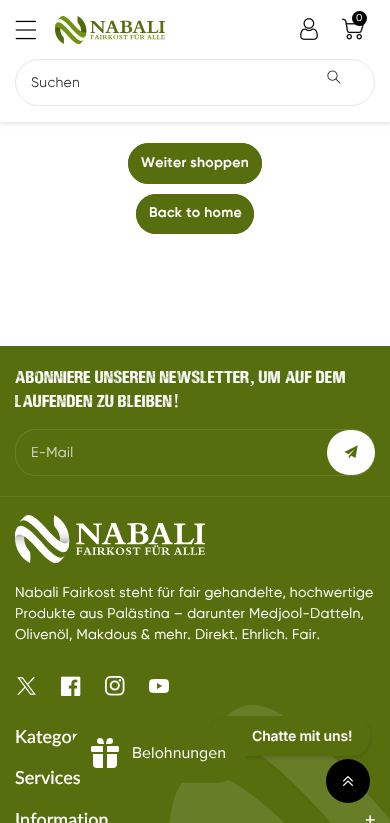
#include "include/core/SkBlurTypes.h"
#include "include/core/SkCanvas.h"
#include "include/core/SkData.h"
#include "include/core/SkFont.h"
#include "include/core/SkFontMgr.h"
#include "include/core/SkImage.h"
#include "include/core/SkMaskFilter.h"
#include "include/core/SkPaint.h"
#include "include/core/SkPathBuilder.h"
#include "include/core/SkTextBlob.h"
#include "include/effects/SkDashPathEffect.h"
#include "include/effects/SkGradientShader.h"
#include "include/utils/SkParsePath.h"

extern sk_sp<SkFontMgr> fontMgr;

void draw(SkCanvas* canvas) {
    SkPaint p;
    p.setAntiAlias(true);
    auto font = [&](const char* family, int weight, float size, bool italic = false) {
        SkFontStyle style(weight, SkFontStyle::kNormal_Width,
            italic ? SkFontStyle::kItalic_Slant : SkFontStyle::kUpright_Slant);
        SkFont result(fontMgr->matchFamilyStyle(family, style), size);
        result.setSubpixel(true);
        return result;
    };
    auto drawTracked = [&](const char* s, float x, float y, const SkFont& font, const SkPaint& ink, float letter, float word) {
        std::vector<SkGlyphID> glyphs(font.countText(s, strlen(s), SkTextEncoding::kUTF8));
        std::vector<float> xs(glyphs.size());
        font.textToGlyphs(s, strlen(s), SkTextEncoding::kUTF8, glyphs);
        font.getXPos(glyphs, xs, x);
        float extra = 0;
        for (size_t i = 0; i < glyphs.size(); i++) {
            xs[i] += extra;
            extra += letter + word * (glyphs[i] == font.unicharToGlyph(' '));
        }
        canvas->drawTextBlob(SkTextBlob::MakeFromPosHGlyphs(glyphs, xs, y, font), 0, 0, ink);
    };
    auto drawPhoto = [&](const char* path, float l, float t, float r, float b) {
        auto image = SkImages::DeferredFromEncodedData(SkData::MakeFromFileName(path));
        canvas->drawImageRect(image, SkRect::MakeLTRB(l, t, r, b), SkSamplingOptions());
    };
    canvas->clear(0xFFFFFFFF);
    p.setColor(0x1A000000);
    p.setMaskFilter(SkMaskFilter::MakeBlur(kNormal_SkBlurStyle, 2));
    canvas->drawRect(SkRect::MakeLTRB(0, 2, 390, 124), p);
    p.setMaskFilter(nullptr);
    p.setColor(0xFFFFFFFF);
    canvas->drawRect(SkRect::MakeLTRB(0, 0, 390, 122), p);
    drawPhoto("media/1.png", 300, 18, 318, 40);
    drawPhoto("media/2.png", 342, 18, 364, 40);
    p.setColor(0xFF000000);
    canvas->drawCircle(359.5f, 18.5f, 7.5f, p);
    auto font1 = font("Gilroy", 400, 10);
    p.setColor(0xFFFFFFFF);
    drawTracked("0", 356, 21, font1, p, 0.3f, 0);
    drawPhoto("media/3.png", 327, 70, 341, 84);
    p.setStyle(SkPaint::kStroke_Style);
    p.setStrokeWidth(1);
    p.setColor(0xFFE6E6E6);
    canvas->drawRoundRect(SkRect::MakeLTRB(15.5f, 59.5f, 374.5f, 105.5f), 23, 23, p);
    auto font2 = font("Gilroy", 400, 14);
    p.setStyle(SkPaint::kFill_Style);
    p.setColor(0xFF404040);
    drawTracked("Suchen", 31, 87, font2, p, 0.3f, 0);
    drawPhoto("media/4.png", 15, 20, 36, 40);
    drawPhoto("media/5.png", 55, 16, 165, 44);
    p.setColor(0xFF566E0E);
    canvas->drawRoundRect(SkRect::MakeLTRB(128, 143, 262, 184), 20.5f, 20.5f, p);
    p.setStyle(SkPaint::kStroke_Style);
    canvas->drawRoundRect(SkRect::MakeLTRB(128.5f, 143.5f, 261.5f, 183.5f), 20, 20, p);
    auto font3 = font("Gilroy", 600, 14);
    p.setStyle(SkPaint::kFill_Style);
    p.setColor(0xFFFFFFFF);
    drawTracked("Weiter shoppen", 141, 167, font3, p, 0.3f, 0);
    p.setColor(0xFF566E0E);
    canvas->drawRoundRect(SkRect::MakeLTRB(136, 194, 254, 234), 20, 20, p);
    p.setStyle(SkPaint::kStroke_Style);
    canvas->drawRoundRect(SkRect::MakeLTRB(136.5f, 194.5f, 253.5f, 233.5f), 19.5f, 19.5f, p);
    p.setStyle(SkPaint::kFill_Style);
    p.setColor(0xFFFFFFFF);
    drawTracked("Back to home", 149, 217, font3, p, 0.3f, 0);
    p.setColor(0xFF566E0E);
    canvas->drawRect(SkRect::MakeLTRB(0, 346, 390, 823), p);
    drawPhoto("media/6.png", 169, 705, 390, 823);
    p.setColor(0xFF657B24);
    canvas->drawRect(SkRect::MakeLTRB(0, 496, 390, 497), p);
    auto font4 = font("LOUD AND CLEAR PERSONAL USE", 400, 20);
    p.setColor(0xFFFFFFFF);
    drawTracked("Abonniere unseren Newsletter", 15, 383, font4, p, 0.3f, 0);
    auto font5 = font("Liberation Serif", 400, 20);
    drawTracked(",", 250, 383, font5, p, 0.3f, 0);
    drawTracked("um auf dem", 259, 383, font4, p, 0.3f, 0);
    drawTracked("Laufenden zu bleiben", 15, 407, font4, p, 0.3f, 0);
    drawTracked("!", 173, 407, font5, p, 0.3f, 0);
    canvas->drawRoundRect(SkRect::MakeLTRB(327, 430, 375, 475), 22.5f, 22.5f, p);
    drawPhoto("media/7.png", 344, 445, 358, 459);
    p.setStyle(SkPaint::kStroke_Style);
    p.setColor(0x1AFFFFFF);
    canvas->drawRoundRect(SkRect::MakeLTRB(15.5f, 429.5f, 374.5f, 475.5f), 20.5f, 20.5f, p);
    p.setStyle(SkPaint::kFill_Style);
    p.setColor(0xFFD5DBC3);
    drawTracked("E-Mail", 31, 457, font2, p, 0.3f, 0);
    drawPhoto("media/8.png", 15, 515, 205, 563);
    p.setColor(0xFFFFFFFF);
    {
        const struct { const char* s; float x, y; } items[] = {
            {"Nabali Fairkost steht für fair gehandelte, hochwertige", 15, 597},
            {"Produkte aus Palästina – darunter Medjool-Datteln,", 15, 618},
            {"Olivenöl, Makdous & mehr. Direkt. Ehrlich. Fair.", 15, 639},
        };
        for (auto [s, x, y] : items) {
            drawTracked(s, x, y, font2, p, 0.3f, 0);
        }
    }
    drawPhoto("media/9.png", 17, 677, 36, 695);
    drawPhoto("media/10.png", 61, 676, 81, 696);
    drawPhoto("media/11.png", 105, 676, 125, 696);
    drawPhoto("media/12.png", 149, 679, 169, 693);
    auto font6 = font("Lato", 500, 18);
    {
        const struct { const char* s; float x, y; } items[] = {
            {"Kategor", 15, 743},
            {"Services", 15, 784},
            {"Information", 15, 826},
        };
        for (auto [s, x, y] : items) {
            canvas->drawString(s, x, y, font6, p);
        }
    }
    auto font7 = font("Lato", 400, 18);
    canvas->drawString("+", 365, 826, font7, p);
    p.setColor(0xFF000000);
    canvas->drawCircle(348, 781, 22, p);
    drawPhoto("media/13.png", 343, 776, 353, 786);
    drawPhoto("media/15.png", 209, 716, 373, 760);
    drawPhoto("media/14.png", 72, 728, 246, 783);
}
